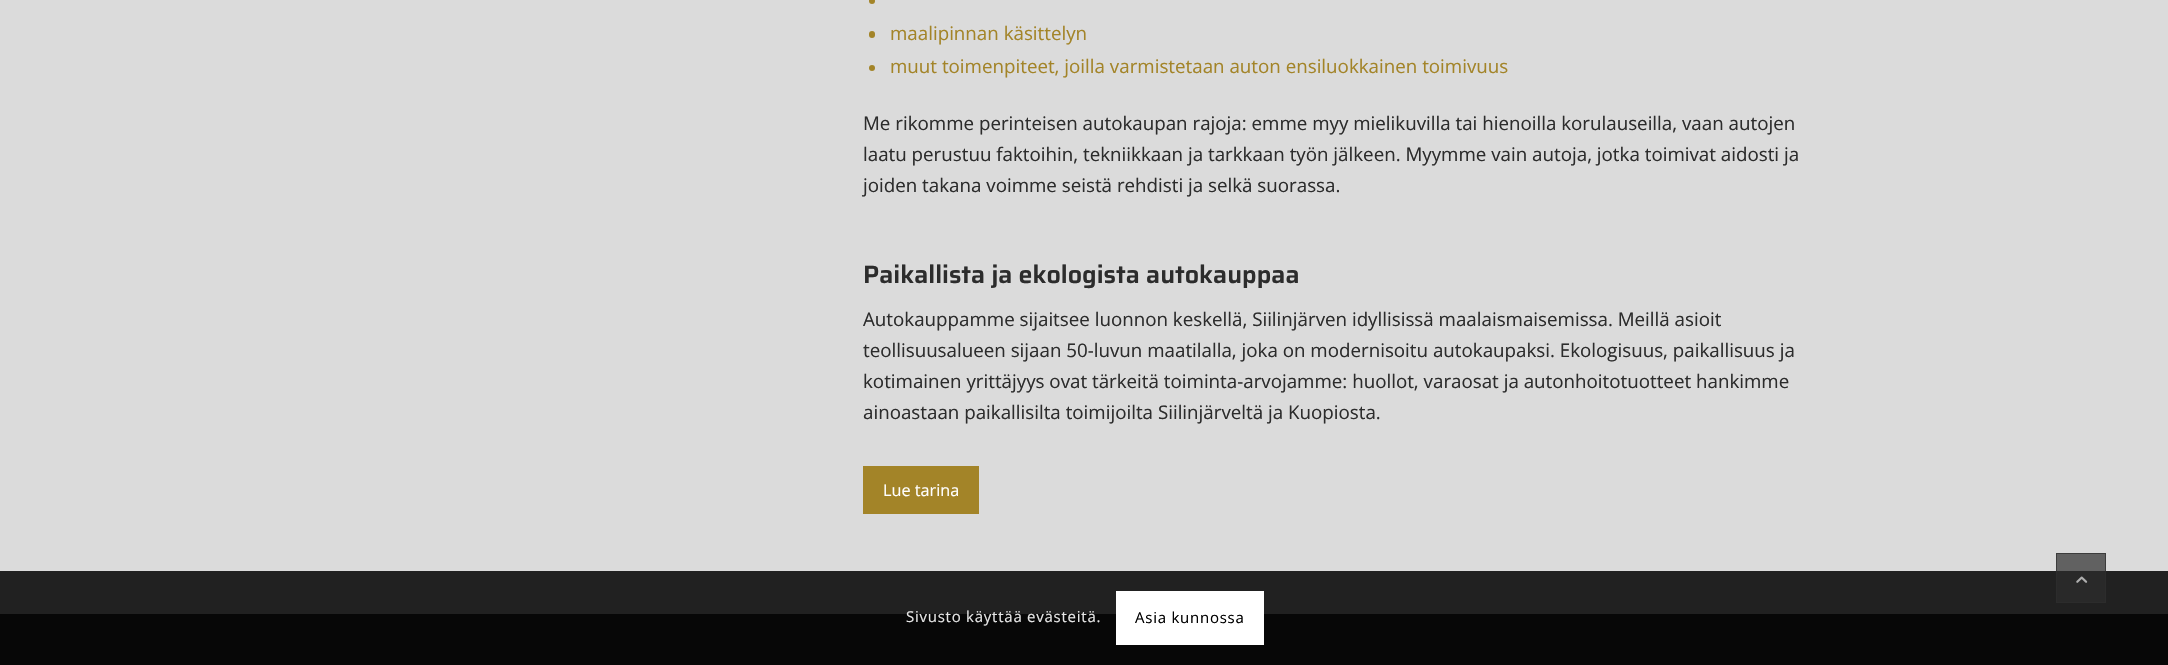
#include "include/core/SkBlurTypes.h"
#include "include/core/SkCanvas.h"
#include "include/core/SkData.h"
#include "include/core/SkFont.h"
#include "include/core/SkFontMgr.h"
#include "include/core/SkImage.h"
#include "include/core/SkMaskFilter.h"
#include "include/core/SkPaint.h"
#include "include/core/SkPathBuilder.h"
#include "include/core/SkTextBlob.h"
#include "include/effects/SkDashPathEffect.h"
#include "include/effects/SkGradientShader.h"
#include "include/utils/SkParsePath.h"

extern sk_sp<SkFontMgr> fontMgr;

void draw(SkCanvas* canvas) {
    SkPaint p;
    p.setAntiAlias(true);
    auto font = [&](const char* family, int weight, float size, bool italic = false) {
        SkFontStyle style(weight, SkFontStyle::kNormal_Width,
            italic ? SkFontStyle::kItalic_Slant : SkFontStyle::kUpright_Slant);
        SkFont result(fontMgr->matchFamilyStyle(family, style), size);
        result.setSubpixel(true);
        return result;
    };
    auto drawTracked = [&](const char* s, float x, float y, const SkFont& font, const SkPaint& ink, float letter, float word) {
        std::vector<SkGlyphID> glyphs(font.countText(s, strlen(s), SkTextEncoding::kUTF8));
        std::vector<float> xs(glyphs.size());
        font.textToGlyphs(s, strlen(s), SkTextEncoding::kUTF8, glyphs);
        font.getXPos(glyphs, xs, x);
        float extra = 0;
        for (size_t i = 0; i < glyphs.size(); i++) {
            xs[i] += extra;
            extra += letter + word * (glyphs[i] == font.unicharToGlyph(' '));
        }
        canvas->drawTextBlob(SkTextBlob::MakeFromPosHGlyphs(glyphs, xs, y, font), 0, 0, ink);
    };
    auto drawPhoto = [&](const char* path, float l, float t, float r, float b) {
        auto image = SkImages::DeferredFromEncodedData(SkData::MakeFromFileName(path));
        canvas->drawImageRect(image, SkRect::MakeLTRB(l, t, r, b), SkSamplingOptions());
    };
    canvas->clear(0xFFDBDBDB);
    {
        const struct { float l, t, r, b; SkColor color; } items[] = {
            {2056, 553, 2106, 571, 0xFF616161},
            {0, 571, 2168, 614, 0xFF212121},
            {2056, 571, 2106, 603, 0xFF292929},
        };
        for (auto [l, t, r, b, color] : items) {
            p.setColor(color);
            canvas->drawRect(SkRect::MakeLTRB(l, t, r, b), p);
        }
    }
    p.setColor(0xFFA38428);
    canvas->drawCircle(872, 1, 3, p);
    canvas->drawRoundRect(SkRect::MakeLTRB(869, 31, 875, 38), 3, 3, p);
    auto font1 = font("Open Sans", 400, 18.75f);
    canvas->drawString("maalipinnan käsittelyn", 890, 40, font1, p);
    canvas->drawCircle(872, 68, 3, p);
    canvas->drawString("muut toimenpiteet, joilla varmistetaan auton ensiluokkainen toimivuus", 890, 73, font1, p);
    p.setColor(0xFF2C2C2C);
    {
        const struct { const char* s; float x, y; } items[] = {
            {"Me rikomme perinteisen autokaupan rajoja: emme myy mielikuvilla tai hienoilla korulauseilla, vaan autojen", 863, 130},
            {"laatu perustuu faktoihin, tekniikkaan ja tarkkaan työn jälkeen. Myymme vain autoja, jotka toimivat aidosti ja", 863, 161},
            {"joiden takana voimme seistä rehdisti ja selkä suorassa.", 863, 192},
        };
        for (auto [s, x, y] : items) {
            canvas->drawString(s, x, y, font1, p);
        }
    }
    auto font2 = font("Saira", 600, 25);
    canvas->drawString("Paikallista ja ekologista autokauppaa", 863, 283, font2, p);
    {
        const struct { const char* s; float x, y; } items[] = {
            {"Autokauppamme sijaitsee luonnon keskellä, Siilinjärven idyllisissä maalaismaisemissa. Meillä asioit", 863, 326},
            {"teollisuusalueen sijaan 50-luvun maatilalla, joka on modernisoitu autokaupaksi. Ekologisuus, paikallisuus ja", 863, 357},
            {"kotimainen yrittäjyys ovat tärkeitä toiminta-arvojamme: huollot, varaosat ja autonhoitotuotteet hankimme", 863, 388},
            {"ainoastaan paikallisilta toimijoilta Siilinjärveltä ja Kuopiosta.", 863, 419},
        };
        for (auto [s, x, y] : items) {
            canvas->drawString(s, x, y, font1, p);
        }
    }
    p.setColor(0xFFA38428);
    canvas->drawRect(SkRect::MakeLTRB(863, 466, 979, 514), p);
    auto font3 = font("Open Sans", 400, 16.25f);
    p.setColor(0xFFFFFFFF);
    canvas->drawString("Lue tarina", 883, 496, font3, p);
    p.setColor(0xFF070707);
    canvas->drawRect(SkRect::MakeLTRB(0, 614, 2168, 665), p);
    p.setStyle(SkPaint::kStroke_Style);
    p.setStrokeWidth(1);
    p.setColor(0xB32C2C2C);
    canvas->drawRect(SkRect::MakeLTRB(2056.5f, 553.5f, 2105.5f, 602.5f), p);
    drawPhoto("media/1.png", 2076, 576, 2088, 583);
    auto font4 = font("Open Sans", 400, 15);
    p.setStyle(SkPaint::kFill_Style);
    p.setColor(0xFFE6E6E6);
    drawTracked("Sivusto käyttää evästeitä.", 906, 622, font4, p, 0.75f, 0);
    p.setColor(0xFFFFFFFF);
    canvas->drawRect(SkRect::MakeLTRB(1116, 591, 1264, 645), p);
    p.setColor(0xFF000000);
    drawTracked("Asia kunnossa", 1135, 623, font4, p, 0.75f, 0);
}
